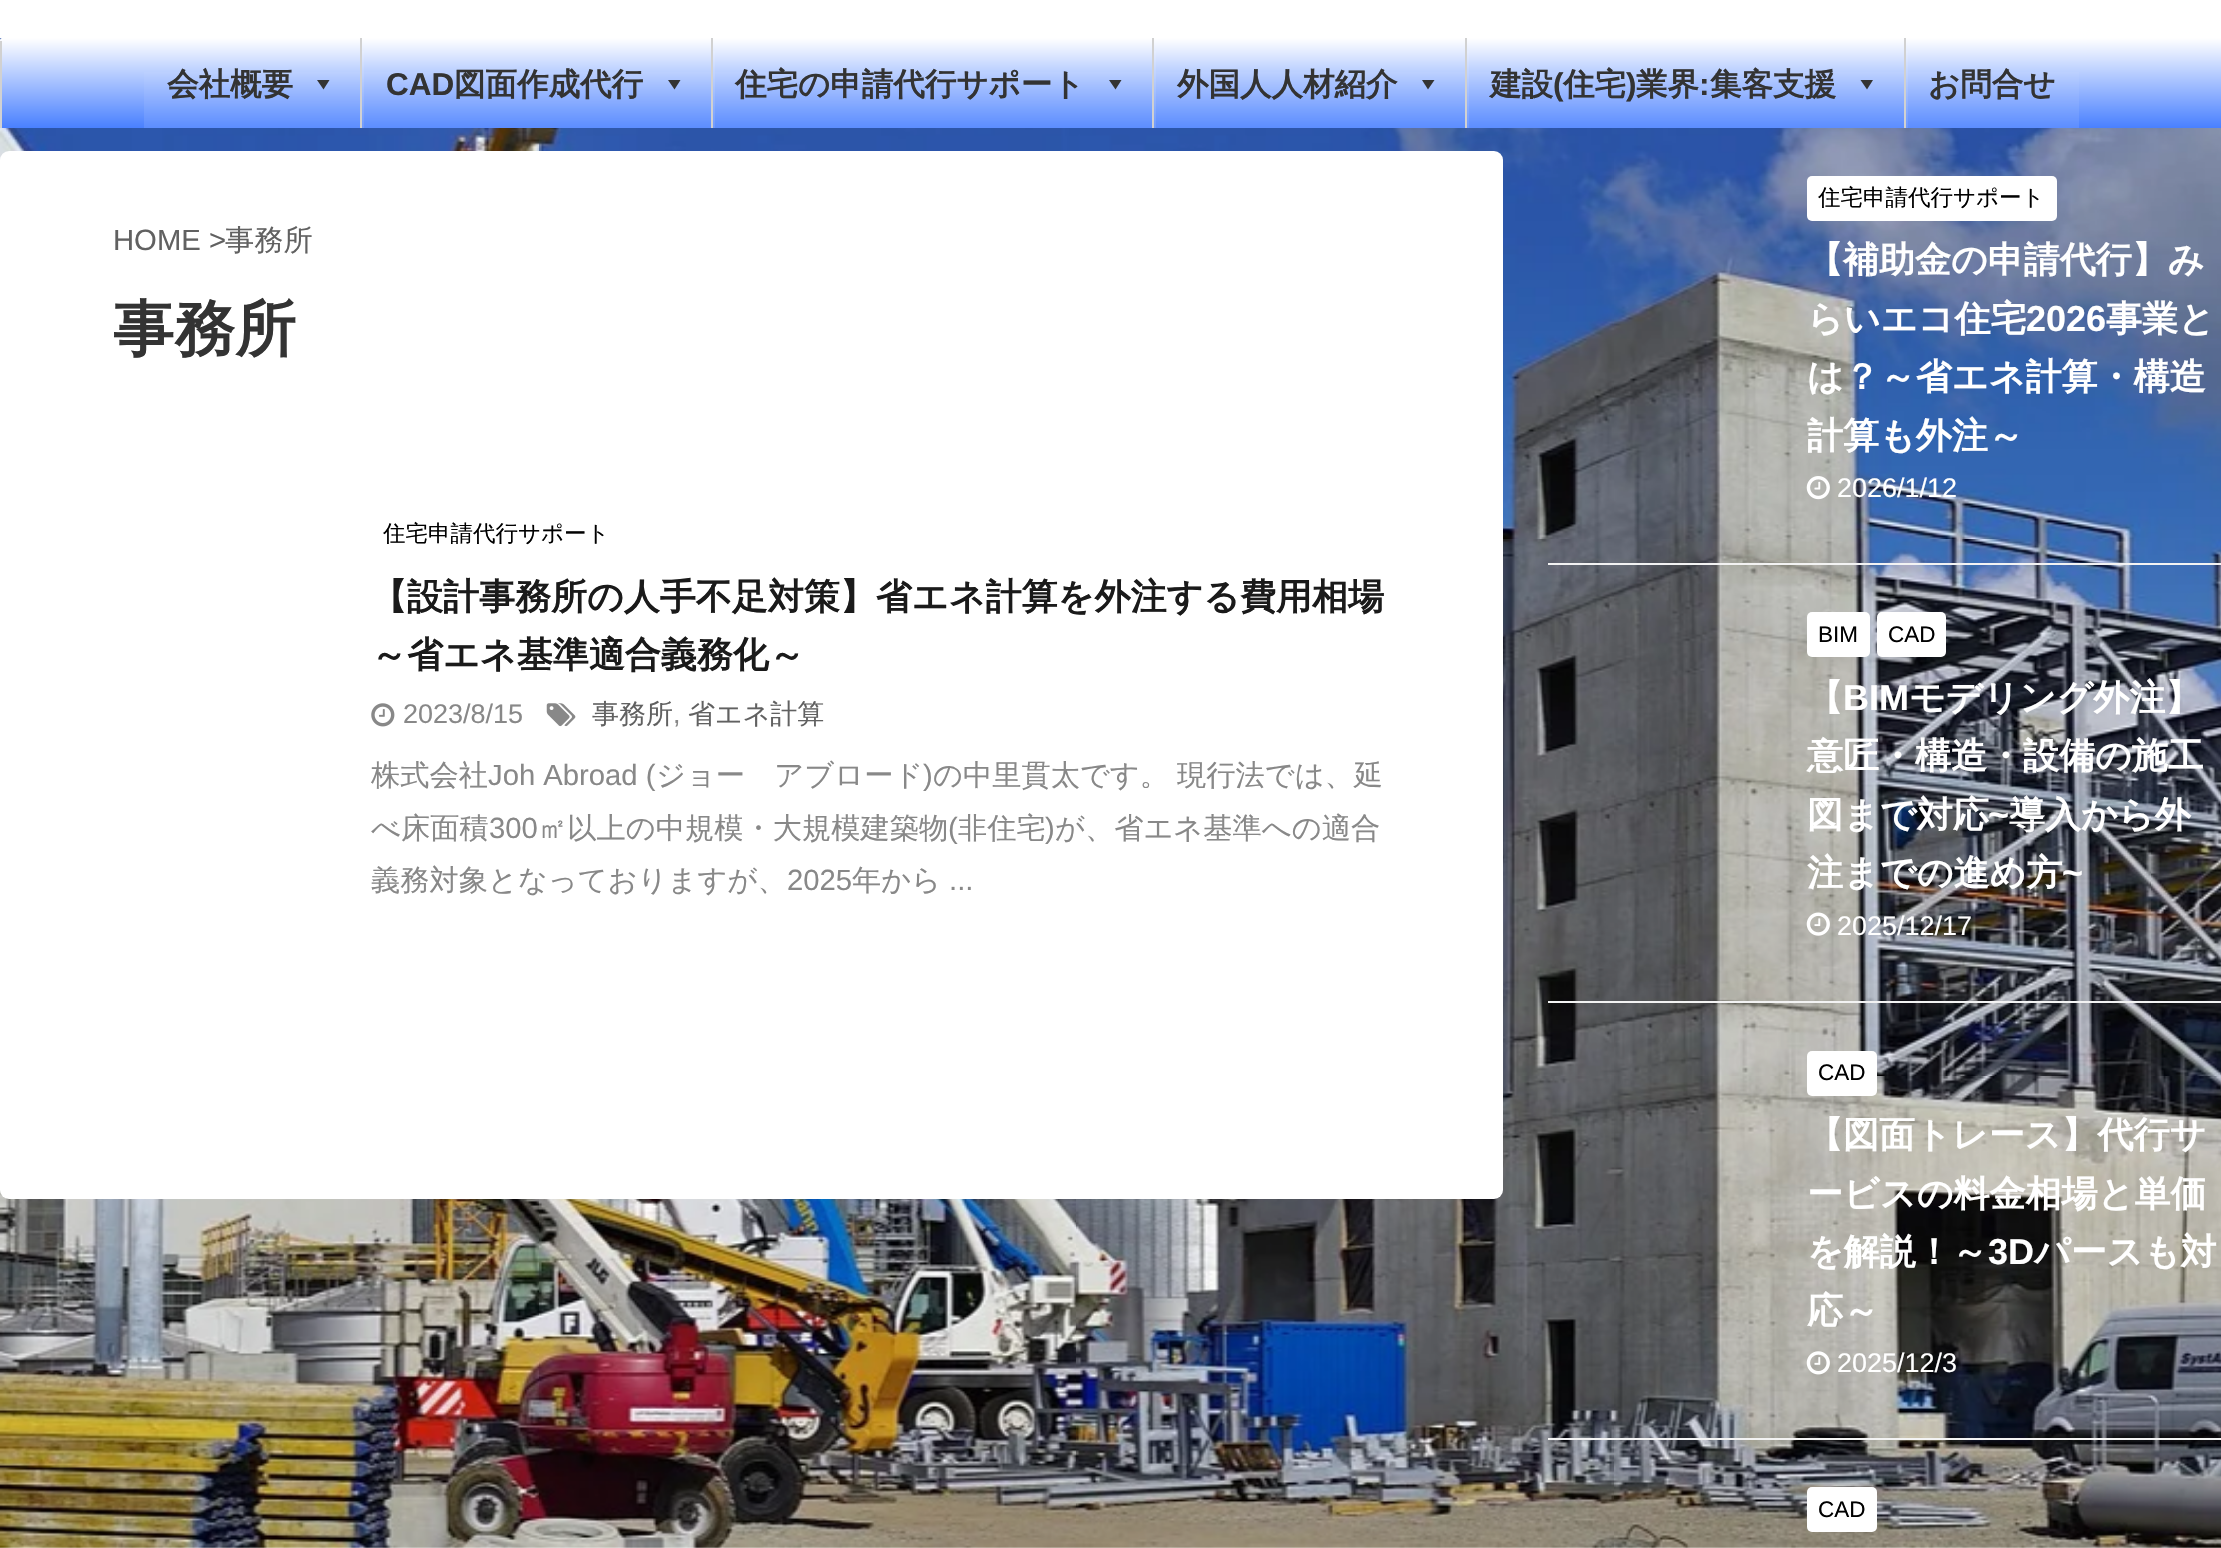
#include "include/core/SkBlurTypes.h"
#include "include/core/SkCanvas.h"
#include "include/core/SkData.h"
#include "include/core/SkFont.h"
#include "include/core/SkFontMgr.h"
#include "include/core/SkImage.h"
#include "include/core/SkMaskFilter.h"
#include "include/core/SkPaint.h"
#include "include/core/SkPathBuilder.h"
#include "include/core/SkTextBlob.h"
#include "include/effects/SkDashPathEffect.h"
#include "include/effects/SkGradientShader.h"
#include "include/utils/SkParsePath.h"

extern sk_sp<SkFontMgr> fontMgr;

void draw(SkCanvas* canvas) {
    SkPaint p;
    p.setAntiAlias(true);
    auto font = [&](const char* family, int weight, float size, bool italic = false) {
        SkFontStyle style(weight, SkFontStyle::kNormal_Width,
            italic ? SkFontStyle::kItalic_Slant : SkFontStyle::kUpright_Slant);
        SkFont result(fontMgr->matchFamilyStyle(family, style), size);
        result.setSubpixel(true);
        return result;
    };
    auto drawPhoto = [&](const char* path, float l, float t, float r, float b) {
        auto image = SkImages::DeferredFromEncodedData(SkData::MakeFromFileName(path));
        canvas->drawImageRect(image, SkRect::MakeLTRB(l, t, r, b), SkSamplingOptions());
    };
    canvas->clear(0xFFFFFFFF);
    drawPhoto("media/1.png", 0, 38, 2221, 1548);
    {
        const SkColor colors[] = {0xFFFFFFFF, 0xFF4980FF};
        const float stops[] = {0, 1};
        const SkPoint ends[] = {{1112, 38}, {1112, 128}};
        p.setShader(SkGradientShader::MakeLinear(ends, colors, stops, 2, SkTileMode::kClamp));
        p.setAlpha(255);
    }
    canvas->drawRoundRect(SkRect::MakeLTRB(0, 38, 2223, 128), 2, 2, p);
    p.setShader(nullptr);
    p.setColor(0xFFD1D1D1);
    canvas->drawRect(SkRect::MakeLTRB(0, 41, 2, 128), p);
    {
        const SkColor colors[] = {0x00FFFFFF, 0x1AFFFFFF};
        const float stops[] = {0, 1};
        const SkPoint ends[] = {{252, 38}, {252, 128}};
        p.setShader(SkGradientShader::MakeLinear(ends, colors, stops, 2, SkTileMode::kClamp));
        p.setAlpha(255);
    }
    canvas->drawRect(SkRect::MakeLTRB(144, 72, 360, 128), p);
    auto font1 = font("WenQuanYi Zen Hei", 700, 31.5f);
    p.setShader(nullptr);
    p.setColor(0xFF333333);
    canvas->drawString("会社概要", 167, 95, font1, p);
    canvas->drawPath(SkPathBuilder().moveTo(329.5f, 80).lineTo(323.5f, 89.5f).lineTo(317, 80).close().detach(), p);
    p.setColor(0x1AFFFFFF);
    canvas->drawRect(SkRect::MakeLTRB(362, 51, 364, 128), p);
    p.setColor(0xFFD1D1D1);
    canvas->drawRect(SkRect::MakeLTRB(360, 38, 362, 128), p);
    {
        const SkColor colors[] = {0x00FFFFFF, 0x1AFFFFFF};
        const float stops[] = {0, 1};
        const SkPoint ends[] = {{537, 38}, {537, 128}};
        p.setShader(SkGradientShader::MakeLinear(ends, colors, stops, 2, SkTileMode::kClamp));
        p.setAlpha(255);
    }
    canvas->drawRect(SkRect::MakeLTRB(362, 72, 711, 128), p);
    auto font2 = font("Liberation Sans", 700, 31.5f);
    p.setShader(nullptr);
    p.setColor(0xFF333333);
    canvas->drawString("CAD", 386, 95, font2, p);
    canvas->drawString("図面作成代行", 454, 95, font1, p);
    canvas->drawPath(SkPathBuilder().moveTo(680.5f, 80).lineTo(674.5f, 89.5f).lineTo(668, 80).close().detach(), p);
    p.setColor(0x1AFFFFFF);
    canvas->drawRect(SkRect::MakeLTRB(713, 51, 715, 128), p);
    p.setColor(0xFFD1D1D1);
    canvas->drawRect(SkRect::MakeLTRB(711, 38, 713, 128), p);
    {
        const SkColor colors[] = {0x00FFFFFF, 0x1AFFFFFF};
        const float stops[] = {0, 1};
        const SkPoint ends[] = {{933, 38}, {933, 128}};
        p.setShader(SkGradientShader::MakeLinear(ends, colors, stops, 2, SkTileMode::kClamp));
        p.setAlpha(255);
    }
    canvas->drawRect(SkRect::MakeLTRB(713, 72, 1152, 128), p);
    p.setShader(nullptr);
    p.setColor(0xFF333333);
    canvas->drawString("住宅の申請代行サポート", 735, 95, font1, p);
    canvas->drawPath(SkPathBuilder().moveTo(1121.5f, 80).lineTo(1115.5f, 89.5f).lineTo(1109, 80).close().detach(), p);
    p.setColor(0x1AFFFFFF);
    canvas->drawRect(SkRect::MakeLTRB(1154, 51, 1156, 128), p);
    p.setColor(0xFFD1D1D1);
    canvas->drawRect(SkRect::MakeLTRB(1152, 38, 1154, 128), p);
    {
        const SkColor colors[] = {0x00FFFFFF, 0x1AFFFFFF};
        const float stops[] = {0, 1};
        const SkPoint ends[] = {{1310, 38}, {1310, 128}};
        p.setShader(SkGradientShader::MakeLinear(ends, colors, stops, 2, SkTileMode::kClamp));
        p.setAlpha(255);
    }
    canvas->drawRect(SkRect::MakeLTRB(1154, 72, 1465, 128), p);
    p.setShader(nullptr);
    p.setColor(0xFF333333);
    canvas->drawString("外国人人材紹介", 1177, 95, font1, p);
    canvas->drawPath(SkPathBuilder().moveTo(1434.5f, 80).lineTo(1428, 89.5f).lineTo(1422, 80).close().detach(), p);
    p.setColor(0x1AFFFFFF);
    canvas->drawRect(SkRect::MakeLTRB(1467, 51, 1469, 128), p);
    p.setColor(0xFFD1D1D1);
    canvas->drawRect(SkRect::MakeLTRB(1465, 38, 1467, 128), p);
    {
        const SkColor colors[] = {0x00FFFFFF, 0x1AFFFFFF};
        const float stops[] = {0, 1};
        const SkPoint ends[] = {{1685, 38}, {1685, 128}};
        p.setShader(SkGradientShader::MakeLinear(ends, colors, stops, 2, SkTileMode::kClamp));
        p.setAlpha(255);
    }
    canvas->drawRect(SkRect::MakeLTRB(1467, 72, 1904, 128), p);
    p.setShader(nullptr);
    p.setColor(0xFF333333);
    canvas->drawString("建設", 1490, 95, font1, p);
    canvas->drawString("(", 1553, 95, font2, p);
    canvas->drawString("住宅", 1563, 95, font1, p);
    canvas->drawString(")", 1626, 95, font2, p);
    canvas->drawString("業界", 1636, 95, font1, p);
    canvas->drawString(":", 1699, 95, font2, p);
    canvas->drawString("集客支援", 1710, 95, font1, p);
    canvas->drawPath(SkPathBuilder().moveTo(1873, 80).lineTo(1867, 89.5f).lineTo(1860.5f, 80).close().detach(), p);
    p.setColor(0x1AFFFFFF);
    canvas->drawRect(SkRect::MakeLTRB(1906, 51, 1908, 128), p);
    p.setColor(0xFFD1D1D1);
    canvas->drawRect(SkRect::MakeLTRB(1904, 38, 1906, 128), p);
    {
        const SkColor colors[] = {0x00FFFFFF, 0x1AFFFFFF};
        const float stops[] = {0, 1};
        const SkPoint ends[] = {{1992, 38}, {1992, 128}};
        p.setShader(SkGradientShader::MakeLinear(ends, colors, stops, 2, SkTileMode::kClamp));
        p.setAlpha(255);
    }
    canvas->drawRect(SkRect::MakeLTRB(1906, 72, 2079, 128), p);
    p.setShader(nullptr);
    p.setColor(0xFF333333);
    canvas->drawString("お問合せ", 1928, 95, font1, p);
    p.setColor(0xFFFFFFFF);
    canvas->drawRoundRect(SkRect::MakeLTRB(0, 151, 1503, 1199), 9, 9, p);
    auto font3 = font("Liberation Sans", 400, 29.25f);
    p.setColor(0xFF616161);
    canvas->drawString("HOME >", 113, 250, font3, p);
    auto font4 = font("WenQuanYi Zen Hei", 500, 29.25f);
    canvas->drawString("事務所", 225, 250, font4, p);
    auto font5 = font("WenQuanYi Zen Hei", 700, 61);
    p.setColor(0xFF333333);
    canvas->drawString("事務所", 113, 350, font5, p);
    auto font6 = font("WenQuanYi Zen Hei", 500, 22.5f);
    p.setColor(0xFF000000);
    canvas->drawString("住宅申請代行サポート", 383, 541, font6, p);
    auto font7 = font("WenQuanYi Zen Hei", 700, 36);
    p.setColor(0xFF1A1A1A);
    canvas->drawString("【設計事務所の人手不足対策】省エネ計算を外注する費用相場", 371, 609, font7, p);
    canvas->drawString("～省エネ基準適合義務化～", 371, 667, font7, p);
    drawPhoto("media/2.png", 371, 703, 395, 727);
    auto font8 = font("Liberation Sans", 400, 27);
    p.setColor(0xFF888888);
    canvas->drawString("2023/8/15", 403, 723, font8, p);
    drawPhoto("media/3.png", 546, 703, 576, 727);
    auto font9 = font("WenQuanYi Zen Hei", 500, 27);
    p.setColor(0xFF616161);
    canvas->drawString("事務所", 592, 723, font9, p);
    p.setColor(0xFF888888);
    canvas->drawString(",", 673, 723, font8, p);
    p.setColor(0xFF616161);
    canvas->drawString("省エネ計算", 688, 723, font9, p);
    p.setColor(0xFF888888);
    canvas->drawString("株式会社", 371, 785, font4, p);
    canvas->drawString("Joh Abroad (", 488, 785, font3, p);
    canvas->drawString("ジョー　アブロード", 656, 785, font4, p);
    canvas->drawString(")", 923, 785, font3, p);
    {
        const struct { const char* s; float x, y; } items[] = {
            {"の中里貫太です。", 933, 785},
            {"現行法では、延", 1177, 785},
            {"べ床面積", 371, 838},
        };
        for (auto [s, x, y] : items) {
            canvas->drawString(s, x, y, font4, p);
        }
    }
    canvas->drawString("300", 489, 838, font3, p);
    canvas->drawString("㎡以上の中規模・大規模建築物", 538, 838, font4, p);
    canvas->drawString("(", 948, 838, font3, p);
    canvas->drawString("非住宅", 958, 838, font4, p);
    canvas->drawString(")", 1045, 838, font3, p);
    canvas->drawString("が、省エネ基準への適合", 1055, 838, font4, p);
    canvas->drawString("義務対象となっておりますが、", 371, 890, font4, p);
    canvas->drawString("2025", 787, 890, font3, p);
    canvas->drawString("年から", 852, 890, font4, p);
    canvas->drawString("...", 949, 890, font3, p);
    p.setColor(0xFFF3F3F3);
    canvas->drawRect(SkRect::MakeLTRB(1548, 563, 2221, 565), p);
    p.setColor(0xFFFFFFFF);
    canvas->drawRoundRect(SkRect::MakeLTRB(1807, 176, 2057, 221), 5, 5, p);
    p.setColor(0xFF000000);
    canvas->drawString("住宅申請代行サポート", 1818, 205, font6, p);
    p.setColor(0xFFFFFFFF);
    canvas->drawString("【補助金の申請代行】み", 1807, 272, font7, p);
    canvas->drawString("らいエコ住宅", 1807, 331, font7, p);
    auto font10 = font("Liberation Sans", 700, 36);
    canvas->drawString("2026", 2026, 331, font10, p);
    {
        const struct { const char* s; float x, y; } items[] = {
            {"事業と", 2106, 331},
            {"は？～省エネ計算・構造", 1807, 389},
            {"計算も外注～", 1807, 448},
        };
        for (auto [s, x, y] : items) {
            canvas->drawString(s, x, y, font7, p);
        }
    }
    drawPhoto("media/4.png", 1806, 476, 1830, 500);
    canvas->drawString("2026/1/12", 1837, 497, font8, p);
    p.setColor(0xFFF3F3F3);
    canvas->drawRect(SkRect::MakeLTRB(1548, 1001, 2221, 1003), p);
    p.setColor(0xFFFFFFFF);
    canvas->drawRoundRect(SkRect::MakeLTRB(1807, 612, 1870, 657), 5, 5, p);
    auto font11 = font("Liberation Sans", 400, 22.5f);
    p.setColor(0xFF000000);
    canvas->drawString("BIM", 1818, 642, font11, p);
    p.setColor(0xFFFFFFFF);
    canvas->drawRoundRect(SkRect::MakeLTRB(1877, 612, 1946, 657), 5, 5, p);
    p.setColor(0xFF000000);
    canvas->drawString("CAD", 1888, 642, font11, p);
    p.setColor(0xFFFFFFFF);
    canvas->drawString("【", 1807, 710, font7, p);
    canvas->drawString("BIM", 1843, 710, font10, p);
    {
        const struct { const char* s; float x, y; } items[] = {
            {"モデリング外注】", 1909, 710},
            {"意匠・構造・設備の施工", 1807, 768},
            {"図まで対応", 1807, 827},
        };
        for (auto [s, x, y] : items) {
            canvas->drawString(s, x, y, font7, p);
        }
    }
    canvas->drawString("~", 1988, 827, font10, p);
    canvas->drawString("導入から外", 2009, 827, font7, p);
    canvas->drawString("注までの進め方", 1807, 885, font7, p);
    canvas->drawString("~", 2062, 885, font10, p);
    drawPhoto("media/5.png", 1806, 912, 1830, 936);
    canvas->drawString("2025/12/17", 1837, 935, font8, p);
    p.setColor(0xFFF3F3F3);
    canvas->drawRect(SkRect::MakeLTRB(1548, 1438, 2221, 1440), p);
    p.setColor(0xFFFFFFFF);
    canvas->drawRoundRect(SkRect::MakeLTRB(1807, 1051, 1877, 1096), 5, 5, p);
    p.setColor(0xFF000000);
    canvas->drawString("CAD", 1818, 1080, font11, p);
    p.setColor(0xFFFFFFFF);
    {
        const struct { const char* s; float x, y; } items[] = {
            {"【図面トレース】代行サ", 1807, 1147},
            {"ービスの料金相場と単価", 1807, 1206},
            {"を解説！～", 1807, 1264},
        };
        for (auto [s, x, y] : items) {
            canvas->drawString(s, x, y, font7, p);
        }
    }
    canvas->drawString("3D", 1988, 1264, font10, p);
    canvas->drawString("パースも対", 2034, 1264, font7, p);
    canvas->drawString("応～", 1807, 1323, font7, p);
    drawPhoto("media/6.png", 1806, 1351, 1830, 1375);
    canvas->drawString("2025/12/3", 1837, 1372, font8, p);
    canvas->drawRoundRect(SkRect::MakeLTRB(1807, 1487, 1877, 1532), 5, 5, p);
    p.setColor(0xFF000000);
    canvas->drawString("CAD", 1818, 1517, font11, p);
}
